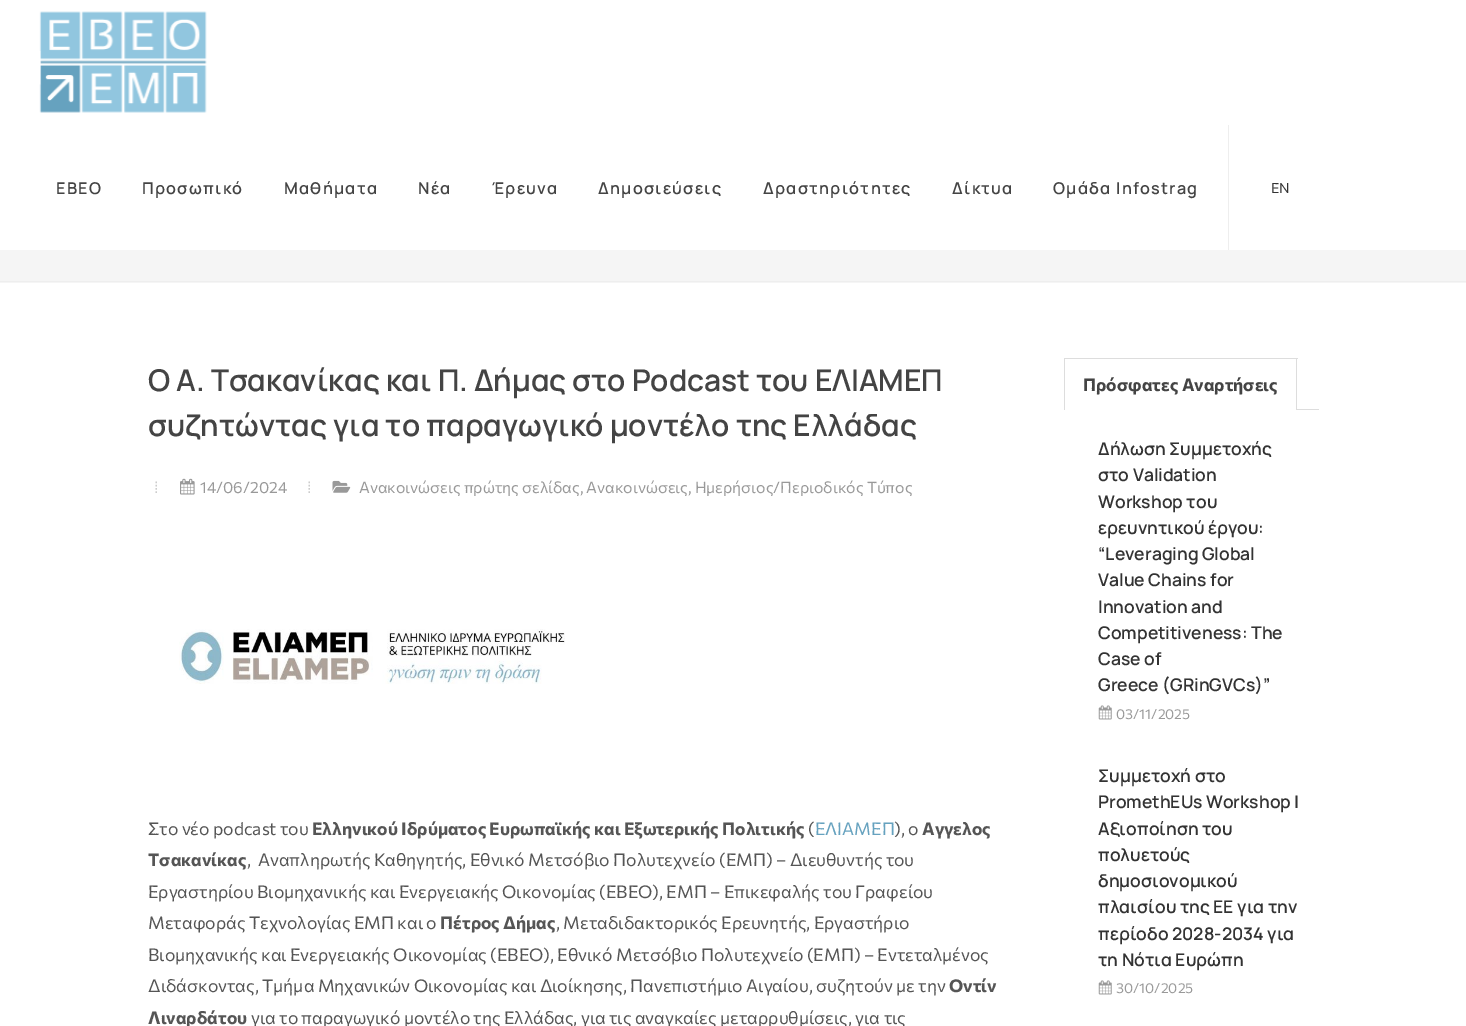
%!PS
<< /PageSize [1466 1026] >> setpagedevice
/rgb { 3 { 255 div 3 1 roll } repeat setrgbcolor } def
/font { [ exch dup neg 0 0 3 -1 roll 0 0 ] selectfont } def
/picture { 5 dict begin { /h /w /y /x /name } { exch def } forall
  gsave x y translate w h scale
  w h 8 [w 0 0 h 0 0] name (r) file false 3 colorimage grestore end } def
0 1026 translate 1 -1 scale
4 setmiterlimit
255 255 255 rgb
0 0 1466 1026 rectfill
(img/1.rgb) 39 11 168 102 picture
[
  [1228 125 1 125 238 238 238]
  [0 250 1466 33 245 245 245]
  [0 281 1466 1 238 238 238]
] { aload pop rgb rectfill } forall
(img/2.rgb) 180 478 15 17 picture
(img/3.rgb) 332 480 19 13 picture
(img/4.rgb) 179 629 386 55 picture
[
  [1064 409 255 1 221 221 221]
  [1064 358 234 1 221 221 221]
  [1296 358 1 51 221 221 221]
  [1064 358 1 51 221 221 221]
  [1065 409 231 1 255 255 255]
] { aload pop rgb rectfill } forall
(img/5.rgb) 1098 705 14 15 picture
(img/5.rgb) 1098 980 14 15 picture
/Manrope-SemiBold 16.25 font
68 68 68 rgb
56 194 moveto 1.25 0 (ΕΒΕΟ) ashow
142 194 moveto 1.25 0 (Προσωπικό) ashow
284 194 moveto 1.25 0 (Μαθήματα) ashow
418 194 moveto 1.25 0 (Νέα) ashow
492 194 moveto 1.25 0 (Έρευνα) ashow
598 194 moveto 1.25 0 (Δημοσιεύσεις) ashow
763 194 moveto 1.25 0 (Δραστηριότητες) ashow
952 194 moveto 1.25 0 (Δίκτυα) ashow
1053 194 moveto 1.25 0 (Ομάδα Infostrag) ashow
/Commissioner-Regular 14 font
51 51 51 rgb
1271 193 moveto (EN) show
/Manrope-SemiBold 30 font
68 68 68 rgb
148 391 moveto (Ο Α. Τσακανίκας και Π. Δήμας στο Podcast του ΕΛΙΑΜΕΠ) show
148 436 moveto (συζητώντας για το παραγωγικό μοντέλο της Ελλάδας) show
/LiberationSans-Regular 15.75 font
204 204 204 rgb
154 493 moveto (⁞) show
/Commissioner-Regular 15.75 font
153 153 153 rgb
200 493 moveto (14/06/2024) show
/LiberationSans-Regular 15.75 font
204 204 204 rgb
307 493 moveto (⁞) show
/Commissioner-Regular 15.75 font
153 153 153 rgb
359 493 moveto (Ανακοινώσεις πρώτης σελίδας, Ανακοινώσεις, Hμερήσιος/Περιοδικός Τύπος) show
/Commissioner-Regular 17.5 font
85 85 85 rgb
148 835 moveto (Στο νέο podcast του) show
/Commissioner-Bold 17.5 font
312 835 moveto (Ελληνικού Ιδρύματος Ευρωπαϊκής και Εξωτερικής Πολιτικής) show
/Commissioner-Regular 17.5 font
808 835 moveto (\() show
102 162 191 rgb
815 835 moveto (ΕΛΙΑΜΕΠ) show
85 85 85 rgb
894 835 moveto (\), o) show
/Commissioner-Bold 17.5 font
922 835 moveto (Αγγελος) show
148 866 moveto (Τσακανίκας) show
/Commissioner-Regular 17.5 font
[
  [(,  Αναπληρωτής Καθηγητής, Εθνικό Μετσόβιο Πολυτεχνείο \(ΕΜΠ\) – Διευθυντής του) 247 866]
  [(Εργαστηρίου Βιομηχανικής και Ενεργειακής Οικονομίας \(ΕΒΕΟ\), ΕΜΠ – Επικεφαλής του Γραφείου) 148 898]
  [(Μεταφοράς Τεχνολογίας ΕΜΠ και ο) 148 929]
] { aload pop moveto show } forall
/Commissioner-Bold 17.5 font
440 929 moveto (Πέτρος Δήμας) show
/Commissioner-Regular 17.5 font
[
  [(, Μεταδιδακτορικός Ερευνητής, Εργαστήριο) 556 929]
  [(Βιομηχανικής και Ενεργειακής Οικονομίας \(ΕΒΕΟ\), Εθνικό Μετσόβιο Πολυτεχνείο \(ΕΜΠ\) – Εντεταλμένος) 148 961]
  [(Διδάσκοντας, Τμήμα Μηχανικών Οικονομίας και Διοίκησης, Πανεπιστήμιο Αιγαίου, συζητούν με την) 148 992]
] { aload pop moveto show } forall
/Commissioner-Bold 17.5 font
949 992 moveto (Οντίν) show
148 1024 moveto (Λιναρδάτου) show
/Commissioner-Regular 17.5 font
251 1024 moveto (για το παραγωγικό μοντέλο της Ελλάδας, για τις αναγκαίες μεταρρυθμίσεις, για τις) show
/Commissioner-Bold 17.5 font
68 68 68 rgb
1083 391 moveto (Πρόσφατες Αναρτήσεις) show
/Manrope-SemiBold 17.5 font
51 51 51 rgb
[
  [(Δήλωση Συμμετοχής) 1098 455]
  [(στο Validation) 1098 481]
  [(Workshop του) 1098 508]
  [(ερευνητικού έργου:) 1098 534]
  [(“Leveraging Global) 1098 560]
  [(Value Chains for) 1098 586]
  [(Innovation and) 1098 613]
  [(Competitiveness: The) 1098 639]
  [(Case of) 1098 665]
  [(Greece \(GRinGVCs\)”) 1098 691]
] { aload pop moveto show } forall
/Commissioner-Regular 14 font
153 153 153 rgb
1116 719 moveto (03/11/2025) show
/Manrope-SemiBold 17.5 font
51 51 51 rgb
[
  [(Συμμετοχή στο) 1098 782]
  [(PromethEUs Workshop |) 1098 808]
  [(Αξιοποίηση του) 1098 835]
  [(πολυετούς) 1098 861]
  [(δημοσιονομικού) 1098 887]
  [(πλαισίου της ΕΕ για την) 1098 913]
  [(περίοδο 2028-2034 για) 1098 940]
  [(τη Νότια Ευρώπη) 1098 966]
] { aload pop moveto show } forall
/Commissioner-Regular 14 font
153 153 153 rgb
1116 993 moveto (30/10/2025) show
showpage
